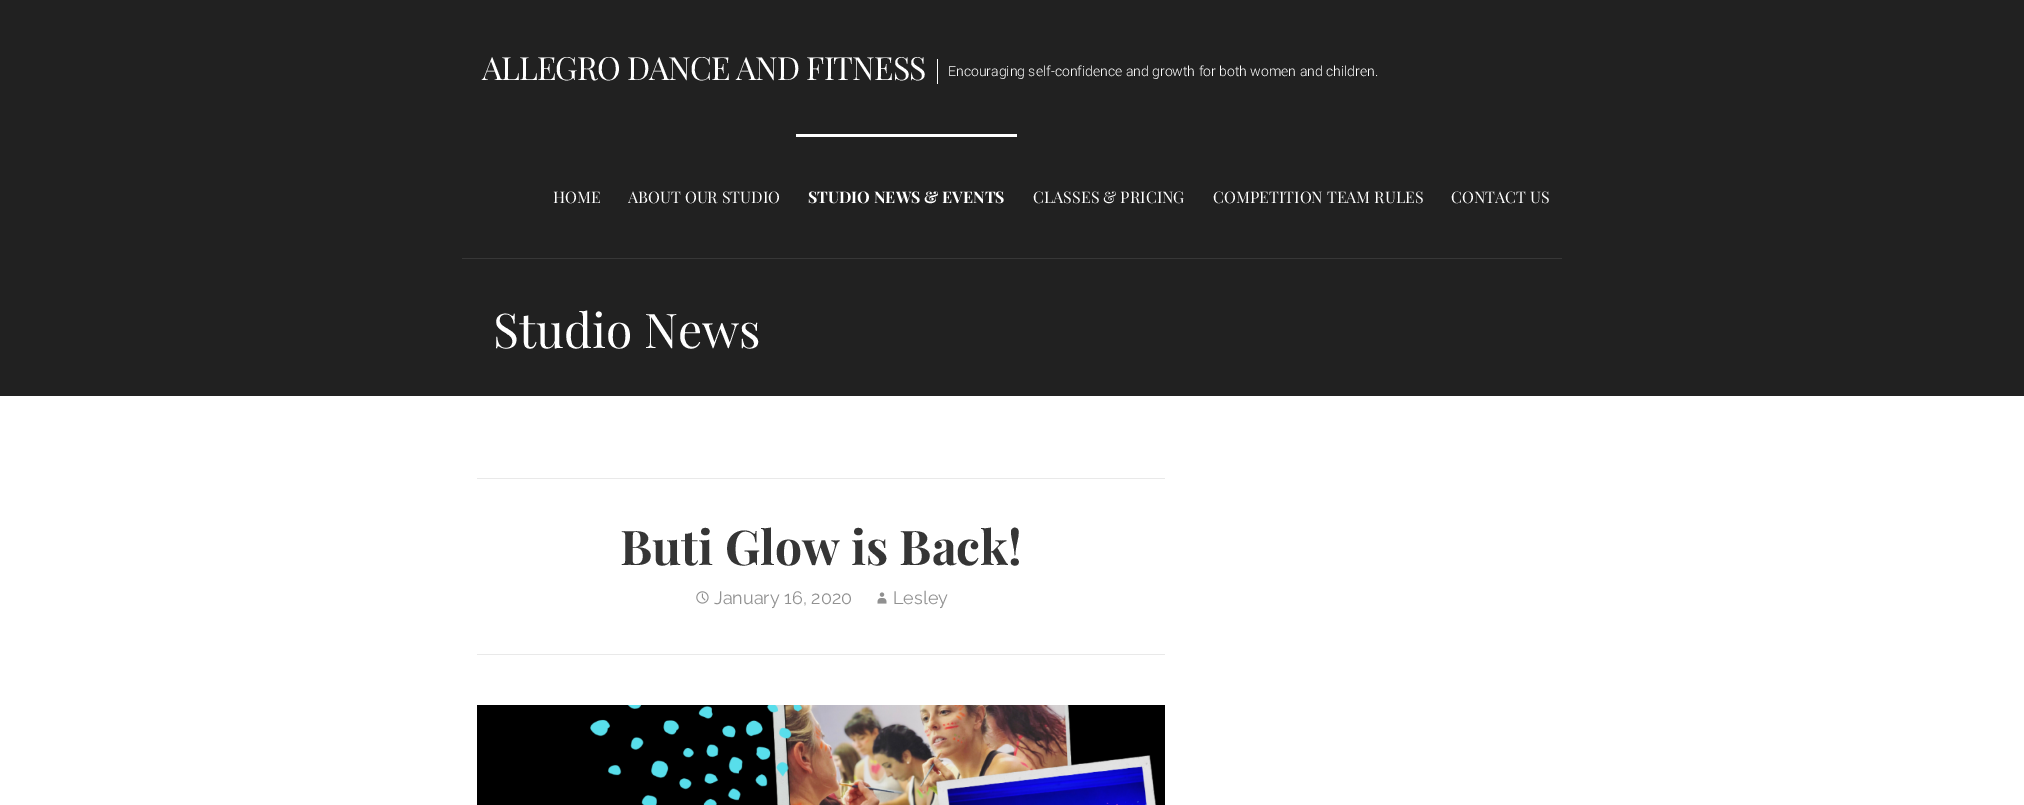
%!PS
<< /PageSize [2024 805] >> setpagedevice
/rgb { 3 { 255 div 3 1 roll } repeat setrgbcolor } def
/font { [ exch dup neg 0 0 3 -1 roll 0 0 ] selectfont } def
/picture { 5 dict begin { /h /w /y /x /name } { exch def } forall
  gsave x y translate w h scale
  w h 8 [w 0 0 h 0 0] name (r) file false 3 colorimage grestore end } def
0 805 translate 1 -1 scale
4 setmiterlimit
255 255 255 rgb
0 0 2024 805 rectfill
[
  [0 0 2024 396 33 33 33]
  [462 258 1100 1 55 55 55]
  [937 59 1 25 255 255 255]
  [796 134 221 3 255 255 255]
  [477 478 688 1 233 233 233]
  [477 654 688 1 233 233 233]
] { aload pop rgb rectfill } forall
(img/1.rgb) 696 591 13 13 picture
(img/2.rgb) 877 592 10 12 picture
(img/3.rgb) 477 705 688 100 picture
/PlayfairDisplay-Regular 32 font
255 255 255 rgb
482 80 moveto -0.95 0 (ALLEGRO DANCE AND FITNESS) ashow
/Roboto-Light 14 font
948 76 moveto (Encouraging self-confidence and growth for both women and children.) show
/PlayfairDisplay-Regular 16 font
553 203 moveto (HOME) show
628 203 moveto (ABOUT OUR STUDIO) show
/PlayfairDisplay-Bold 16 font
808 203 moveto (STUDIO NEWS & EVENTS) show
/PlayfairDisplay-Regular 16 font
[
  [(CLASSES & PRICING) 1033 203]
  [(COMPETITION TEAM RULES) 1213 203]
  [(CONTACT US) 1451 203]
] { aload pop moveto show } forall
/PlayfairDisplay-Regular 48 font
493 348 moveto (Studio News) show
/PlayfairDisplay-Bold 48 font
53 53 53 rgb
620 565 moveto (Buti Glow is Back!) show
/Raleway-Regular 18 font
145 145 145 rgb
714 604 moveto (January 16, 2020) show
893 604 moveto (Lesley) show
showpage
